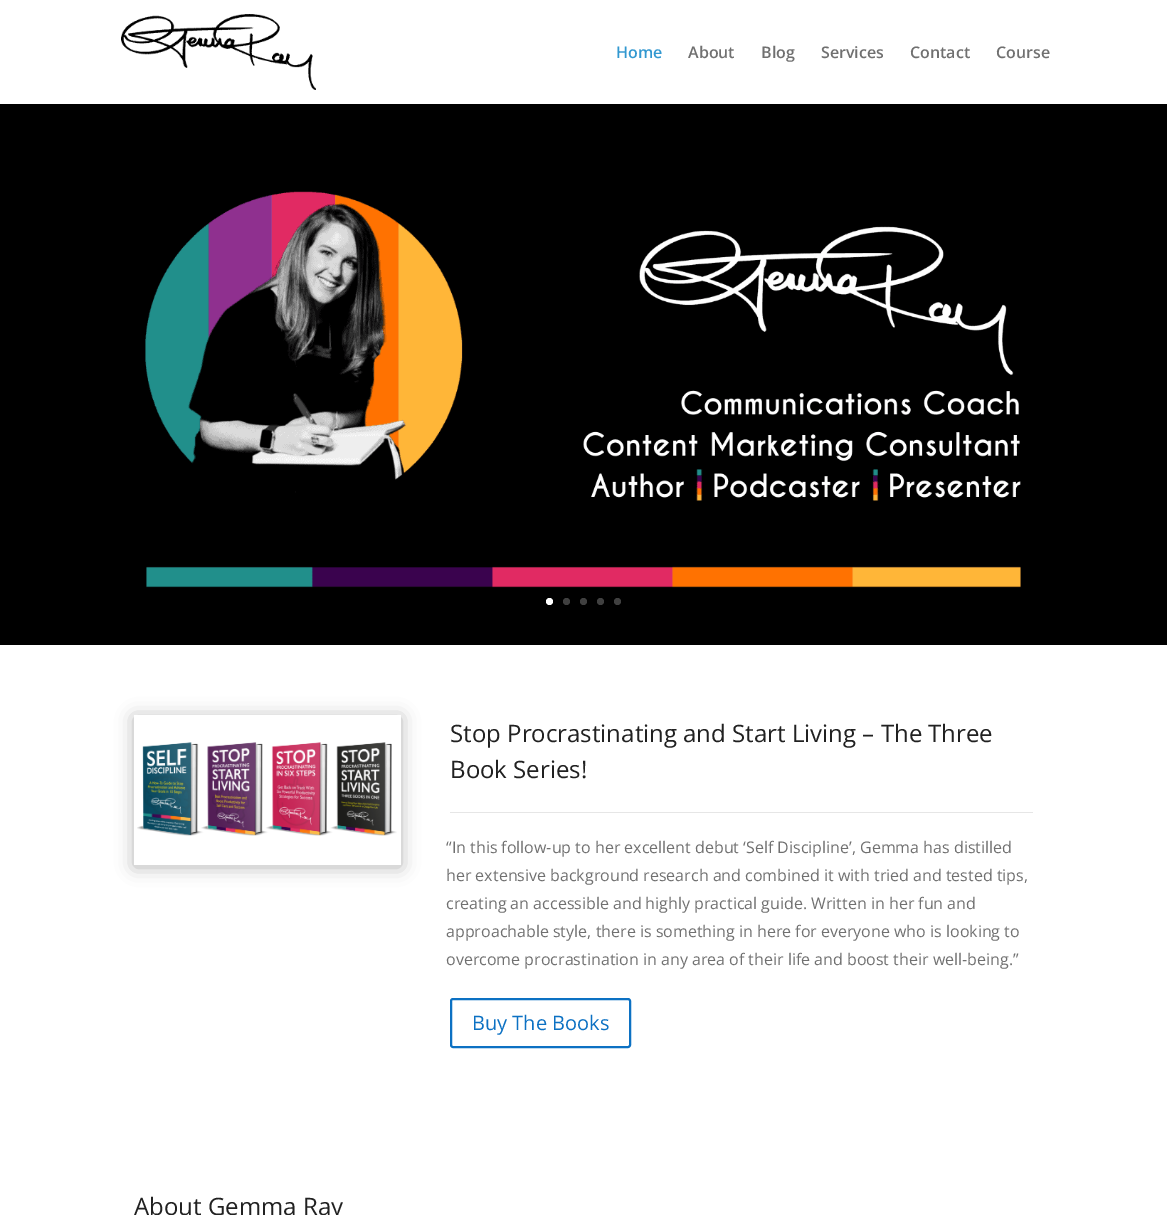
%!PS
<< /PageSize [1167 1215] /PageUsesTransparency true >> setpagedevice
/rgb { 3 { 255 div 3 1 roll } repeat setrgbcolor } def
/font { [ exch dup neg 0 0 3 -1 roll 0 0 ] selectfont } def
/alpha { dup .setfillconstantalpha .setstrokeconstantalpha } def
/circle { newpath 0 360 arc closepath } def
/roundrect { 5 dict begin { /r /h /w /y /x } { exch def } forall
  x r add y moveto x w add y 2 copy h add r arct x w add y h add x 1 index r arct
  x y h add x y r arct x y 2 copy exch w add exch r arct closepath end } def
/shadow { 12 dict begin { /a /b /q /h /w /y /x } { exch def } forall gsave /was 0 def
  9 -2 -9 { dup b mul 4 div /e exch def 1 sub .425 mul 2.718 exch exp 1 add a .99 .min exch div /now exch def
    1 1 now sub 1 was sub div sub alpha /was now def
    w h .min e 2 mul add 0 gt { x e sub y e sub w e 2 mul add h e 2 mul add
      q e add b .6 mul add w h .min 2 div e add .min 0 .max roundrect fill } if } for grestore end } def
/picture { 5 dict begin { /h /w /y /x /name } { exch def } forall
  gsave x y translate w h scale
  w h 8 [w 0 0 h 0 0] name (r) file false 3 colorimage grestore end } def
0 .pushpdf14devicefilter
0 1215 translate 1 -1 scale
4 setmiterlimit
255 255 255 rgb
0 0 1167 1215 rectfill
(img/1.rgb) 121 14 195 76 picture
(img/2.rgb) 0 104 1167 541 picture
549.5 601.5 3.5 circle fill
64 64 64 rgb
566.5 601.5 3.5 circle fill
583.5 601.5 3.5 circle fill
600.5 601.5 3.5 circle fill
617.5 601.5 3.5 circle fill
gsave
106 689 moveto 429 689 lineto 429 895 lineto 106 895 lineto closepath 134 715 moveto 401 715 lineto 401 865 lineto 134 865 lineto closepath eoclip newpath
0 0 0 rgb
134 717 267 150 0 9 0.3 shadow
grestore
(img/3.rgb) 137 742 260 94 picture
230 230 230 rgb
450 812 583 1 rectfill
12 113 195 rgb
2 setlinewidth
451 999 179 48 2 roundrect stroke
/OpenSans-SemiBold 16 font
50 152 208 rgb
616 58 moveto (Home) show
112 112 112 rgb
[
  [(About) 688 58]
  [(Blog) 761 58]
  [(Services) 821 58]
  [(Contact) 910 58]
  [(Course) 996 58]
] { aload pop moveto show } forall
/OpenSans-Regular 24 font
33 33 33 rgb
450 742 moveto (Stop Procrastinating and Start Living – The Three) show
450 778 moveto (Book Series!) show
/OpenSans-Regular 16 font
112 112 112 rgb
[
  [(“In this follow-up to her excellent debut ‘Self Discipline’, Gemma has distilled) 446 853]
  [(her extensive background research and combined it with tried and tested tips,) 446 881]
  [(creating an accessible and highly practical guide. Written in her fun and) 446 909]
  [(approachable style, there is something in here for everyone who is looking to) 446 937]
  [(overcome procrastination in any area of their life and boost their well-being.”) 446 965]
] { aload pop moveto show } forall
/OpenSans-Regular 20 font
12 113 195 rgb
472 1030 moveto (Buy The Books) show
/OpenSans-Regular 24 font
33 33 33 rgb
134 1215 moveto (About Gemma Ray) show
.poppdf14devicefilter showpage
